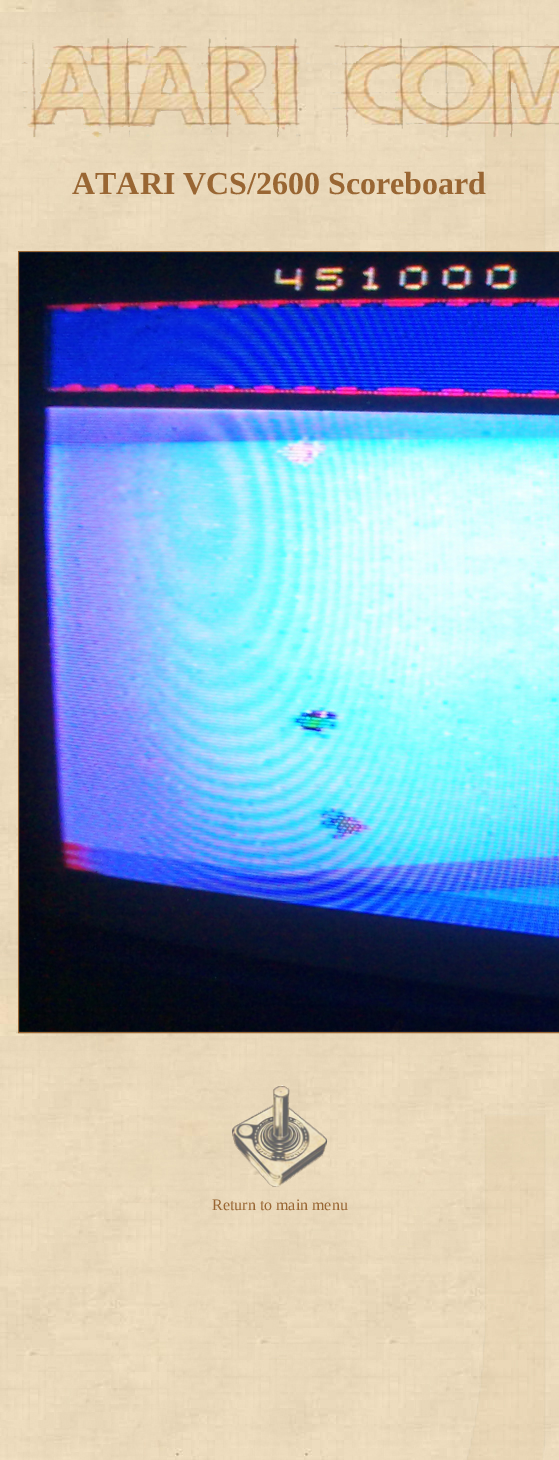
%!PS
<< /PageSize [559 1460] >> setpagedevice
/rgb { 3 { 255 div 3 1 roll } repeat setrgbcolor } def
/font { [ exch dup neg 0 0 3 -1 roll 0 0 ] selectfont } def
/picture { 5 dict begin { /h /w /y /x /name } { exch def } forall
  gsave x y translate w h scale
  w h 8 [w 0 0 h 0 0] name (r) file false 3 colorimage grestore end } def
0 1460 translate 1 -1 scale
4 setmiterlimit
255 255 255 rgb
0 0 559 1460 rectfill
(img/1.rgb) 0 0 559 1460 picture
(img/2.rgb) 21 24 538 114 picture
153 102 51 rgb
18.5 251.5 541 781 rectstroke
(img/3.rgb) 19 252 540 780 picture
(img/4.rgb) 231 1085 97 103 picture
/LiberationSerif-Bold 32 font
72 194 moveto (ATARI VCS/2600 Scoreboard) show
/LiberationSerif-Regular 16 font
212 1210 moveto (Return to main menu) show
showpage
